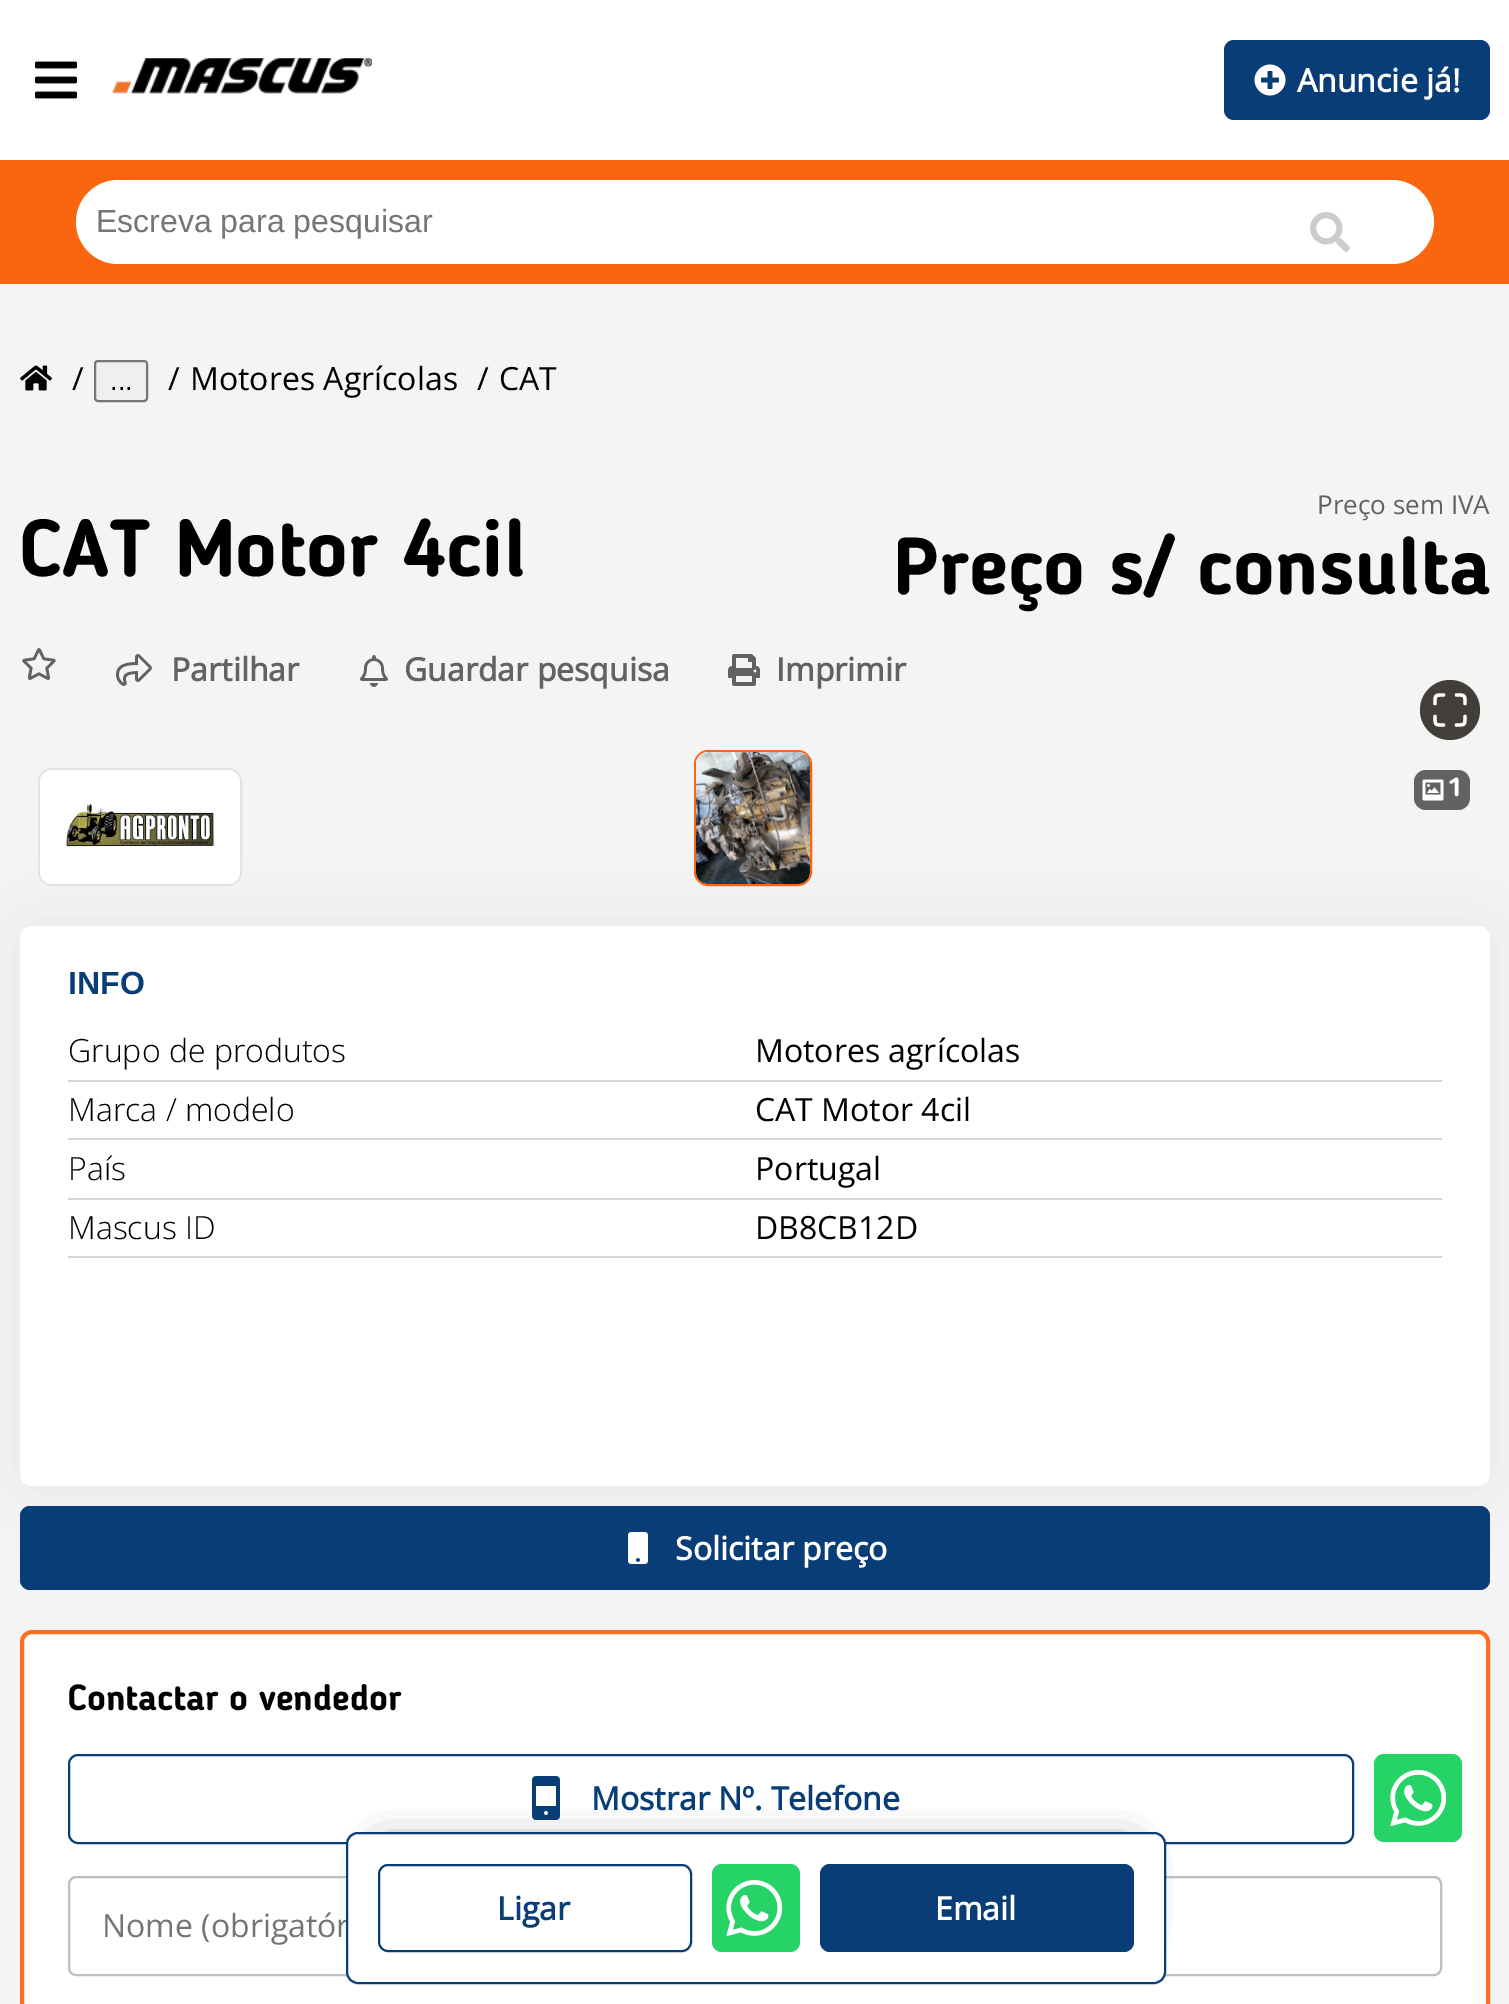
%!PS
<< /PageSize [1509 2004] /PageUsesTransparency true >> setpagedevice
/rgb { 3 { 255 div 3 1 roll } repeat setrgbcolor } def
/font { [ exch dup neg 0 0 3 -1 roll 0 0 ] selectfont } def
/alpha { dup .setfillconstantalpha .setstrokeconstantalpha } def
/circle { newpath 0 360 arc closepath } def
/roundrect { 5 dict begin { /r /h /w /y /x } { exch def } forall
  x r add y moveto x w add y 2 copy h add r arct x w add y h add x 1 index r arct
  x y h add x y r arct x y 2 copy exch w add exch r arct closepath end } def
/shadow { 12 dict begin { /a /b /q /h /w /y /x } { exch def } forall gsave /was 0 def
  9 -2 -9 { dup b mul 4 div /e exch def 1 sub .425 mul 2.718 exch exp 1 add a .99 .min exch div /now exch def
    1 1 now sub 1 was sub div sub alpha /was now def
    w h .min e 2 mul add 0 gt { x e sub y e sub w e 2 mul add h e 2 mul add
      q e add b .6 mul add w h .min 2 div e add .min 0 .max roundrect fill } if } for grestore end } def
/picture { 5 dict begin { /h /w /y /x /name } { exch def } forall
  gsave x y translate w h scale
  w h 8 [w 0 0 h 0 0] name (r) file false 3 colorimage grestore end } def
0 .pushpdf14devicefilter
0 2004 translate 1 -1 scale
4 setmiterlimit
244 244 244 rgb
0 0 1509 2004 rectfill
255 255 255 rgb
0 0 1509 160 rectfill
(img/1.rgb) 35 61 42 38 picture
(img/2.rgb) 112 58 260 36 picture
8 61 119 rgb
1224 40 266 80 10 roundrect fill
(img/3.rgb) 1254 64 32 32 picture
250 101 15 rgb
0 160 1509 124 rectfill
255 255 255 rgb
118 180 moveto 1230 180 lineto 1230 264 lineto 118 264 lineto 95 264 76 245 76 222 curveto 76 199 95 180 118 180 curveto closepath fill
1230 180 moveto 1392 180 lineto 1415 180 1434 199 1434 222 curveto 1434 245 1415 264 1392 264 curveto 1230 264 lineto closepath fill
(img/4.rgb) 1310 212 40 40 picture
(img/5.rgb) 20 365 32 26 picture
239 239 239 rgb
95 361 52 40 3 roundrect gsave fill grestore
118 118 118 rgb
2 setlinewidth
stroke
(img/6.rgb) 22 648 34 32 picture
(img/7.rgb) 116 654 36 32 picture
(img/8.rgb) 360 655 28 32 picture
(img/9.rgb) 728 654 32 32 picture
0 0 0 rgb
20 926 1470 560 12 41 0.06 shadow
250 101 15 rgb
695 751 116 134 13 roundrect stroke
(img/10.rgb) 696 752 114 132 picture
66 63 59 rgb
1450 710 30 circle fill
255 255 255 rgb
3.3 setlinewidth
1 setlinecap
1 setlinejoin
1443.5 695 moveto 1435 695 1435 695 1435 703.5 curveto 1465 703.5 moveto 1465 695 1465 695 1456.5 695 curveto 1456.5 725 moveto 1465 725 1465 725 1465 716.5 curveto 1435 716.5 moveto 1435 725 1435 725 1443.5 725 curveto stroke
227 227 227 rgb
2 setlinewidth
0 setlinecap
0 setlinejoin
39 769 202 116 13 roundrect stroke
255 255 255 rgb
40 770 200 114 12 roundrect fill
(img/11.rgb) 66 803 148 44 picture
98 98 98 rgb
1414 770 56 40 12 roundrect fill
(img/12.rgb) 1422 779 22 22 picture
255 255 255 rgb
20 926 1470 560 12 roundrect fill
[
  [68 1080 1374 2 214 214 214]
  [68 1138 1374 2 214 214 214]
  [68 1198 1374 2 214 214 214]
  [68 1256 1374 2 214 214 214]
] { aload pop rgb rectfill } forall
8 61 119 rgb
20 1506 1470 84 10 roundrect fill
(img/13.rgb) 628 1532 20 32 picture
255 255 255 rgb
22 1632 1466 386 10 roundrect gsave fill grestore
251 113 33 rgb
4 setlinewidth
stroke
8 61 119 rgb
2 setlinewidth
69 1755 1284 88 9 roundrect stroke
(img/14.rgb) 532 1776 28 44 picture
37 211 102 rgb
1374 1754 88 88 10 roundrect fill
(img/15.rgb) 1390 1770 56 56 picture
190 190 190 rgb
69 1877 1372 98 7 roundrect stroke
51 51 51 rgb
384 1854 744 76 0 20 1 shadow
/OpenSans-Bold 32 font
255 255 255 rgb
1297 92 moveto (Anuncie já!) show
/LiberationSans-Regular 32 font
117 117 117 rgb
96 232 moveto (Escreva para pesquisar) show
/OpenSans-Regular 32 font
0 0 0 rgb
72 390 moveto (/) show
/LiberationSans-Regular 27 font
110 390 moveto (...) show
/OpenSans-Regular 32 font
[
  [(/) 168 390]
  [(Motores Agrícolas) 190 390]
  [(/) 477 390]
  [(CAT) 499 390]
] { aload pop moveto show } forall
/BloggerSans-Bold 80 font
20 576 moveto (CAT Motor 4cil) show
/OpenSans-Regular 26 font
98 98 98 rgb
1317 514 moveto (Preço sem IVA) show
/BloggerSans-Bold 80 font
0 0 0 rgb
893 594 moveto (Preço s/ consulta) show
/OpenSans-Bold 32 font
98 98 98 rgb
[
  [(Partilhar) 171 681]
  [(Guardar pesquisa) 404 681]
  [(Imprimir) 776 681]
] { aload pop moveto show } forall
/BloggerSans-Bold 26 font
255 255 255 rgb
1448 796 moveto (1) show
/LiberationSans-Bold 32 font
8 61 119 rgb
68 994 moveto (INFO) show
/OpenSans-Light 32 font
0 0 0 rgb
68 1062 moveto (Grupo de produtos) show
/OpenSans-Regular 32 font
755 1062 moveto (Motores agrícolas) show
/OpenSans-Light 32 font
68 1121 moveto (Marca / modelo) show
/OpenSans-Regular 32 font
755 1121 moveto (CAT Motor 4cil) show
/OpenSans-Light 32 font
68 1180 moveto (País) show
/OpenSans-Regular 32 font
755 1180 moveto (Portugal) show
/OpenSans-Light 32 font
68 1239 moveto (Mascus ID) show
/OpenSans-Regular 32 font
755 1239 moveto (DB8CB12D) show
/OpenSans-Bold 32 font
255 255 255 rgb
675 1560 moveto (Solicitar preço) show
/BloggerSans-Bold 36 font
0 0 0 rgb
68 1710 moveto (Contactar o vendedor) show
/OpenSans-Bold 32 font
8 61 119 rgb
591 1810 moveto (Mostrar Nº. Telefone) show
/OpenSans-Regular 32 font
117 117 117 rgb
102 1937 moveto (Nome \(obrigatór) show
255 255 255 rgb
347 1833 818 150 11 roundrect gsave fill grestore
8 61 119 rgb
stroke
379 1865 312 86 9 roundrect stroke
/OpenSans-Bold 32 font
497 1920 moveto (Ligar) show
37 211 102 rgb
712 1864 88 88 10 roundrect fill
(img/16.rgb) 726 1880 57 56 picture
8 61 119 rgb
820 1864 314 88 10 roundrect fill
255 255 255 rgb
935 1920 moveto (Email) show
.poppdf14devicefilter showpage
